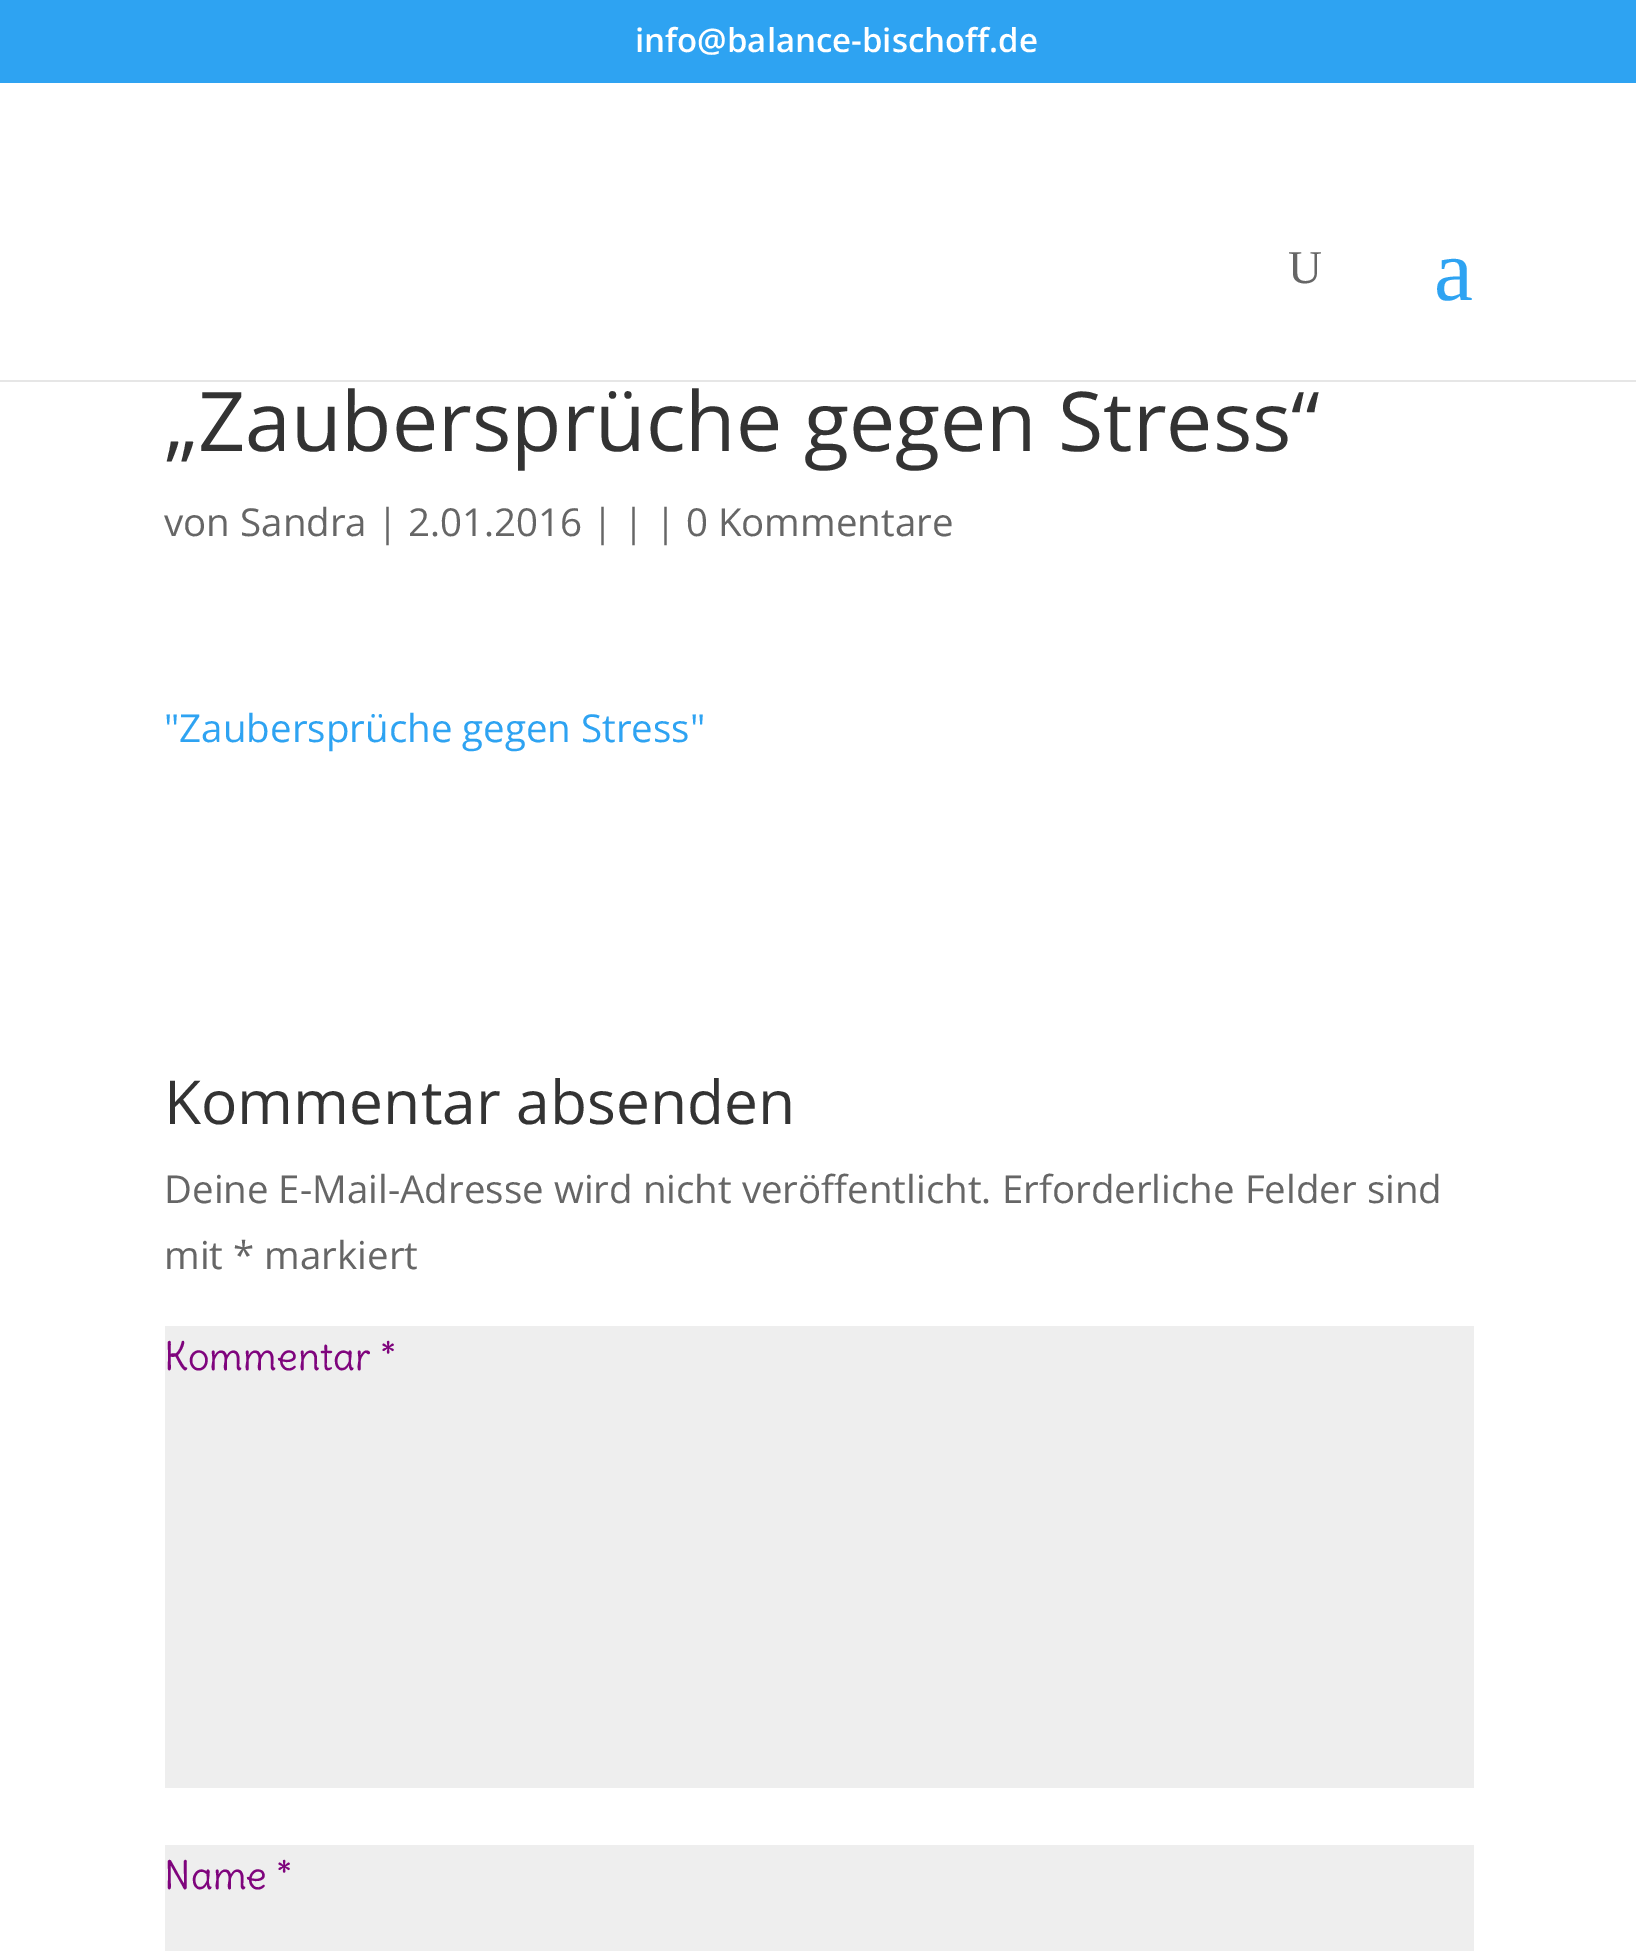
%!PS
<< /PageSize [1636 1951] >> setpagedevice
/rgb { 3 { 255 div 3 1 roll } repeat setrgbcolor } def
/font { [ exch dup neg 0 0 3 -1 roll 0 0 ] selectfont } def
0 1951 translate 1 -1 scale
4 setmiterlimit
255 255 255 rgb
0 0 1636 1951 rectfill
[
  [0 0 1636 83 46 163 242]
  [0 380 1636 2 230 230 230]
  [165 1326 1309 462 238 238 238]
  [165 1845 1309 106 238 238 238]
] { aload pop rgb rectfill } forall
/OpenSans-SemiBold 33 font
255 255 255 rgb
635 52 moveto (info@balance-bischoff.de) show
/LiberationSerif-Regular 47 font
102 102 102 rgb
1288 283 moveto (U) show
/LiberationSerif-Regular 88 font
46 163 242 rgb
1434 300 moveto (a) show
/OpenSans-Regular 82.5 font
51 51 51 rgb
164 451 moveto („Zaubersprüche gegen Stress“) show
/OpenSans-Regular 38.5 font
102 102 102 rgb
164 536 moveto (von Sandra | 2.01.2016 | | | 0 Kommentare) show
46 163 242 rgb
164 742 moveto ("Zaubersprüche gegen Stress") show
/OpenSans-Regular 60.5 font
51 51 51 rgb
164 1124 moveto (Kommentar absenden) show
/OpenSans-Regular 38.5 font
102 102 102 rgb
164 1203 moveto (Deine E-Mail-Adresse wird nicht veröffentlicht. Erforderliche Felder sind) show
164 1269 moveto (mit * markiert) show
/Delius-Regular 38.5 font
127 4 125 rgb
164 1370 moveto (Kommentar *) show
164 1889 moveto (Name *) show
showpage
